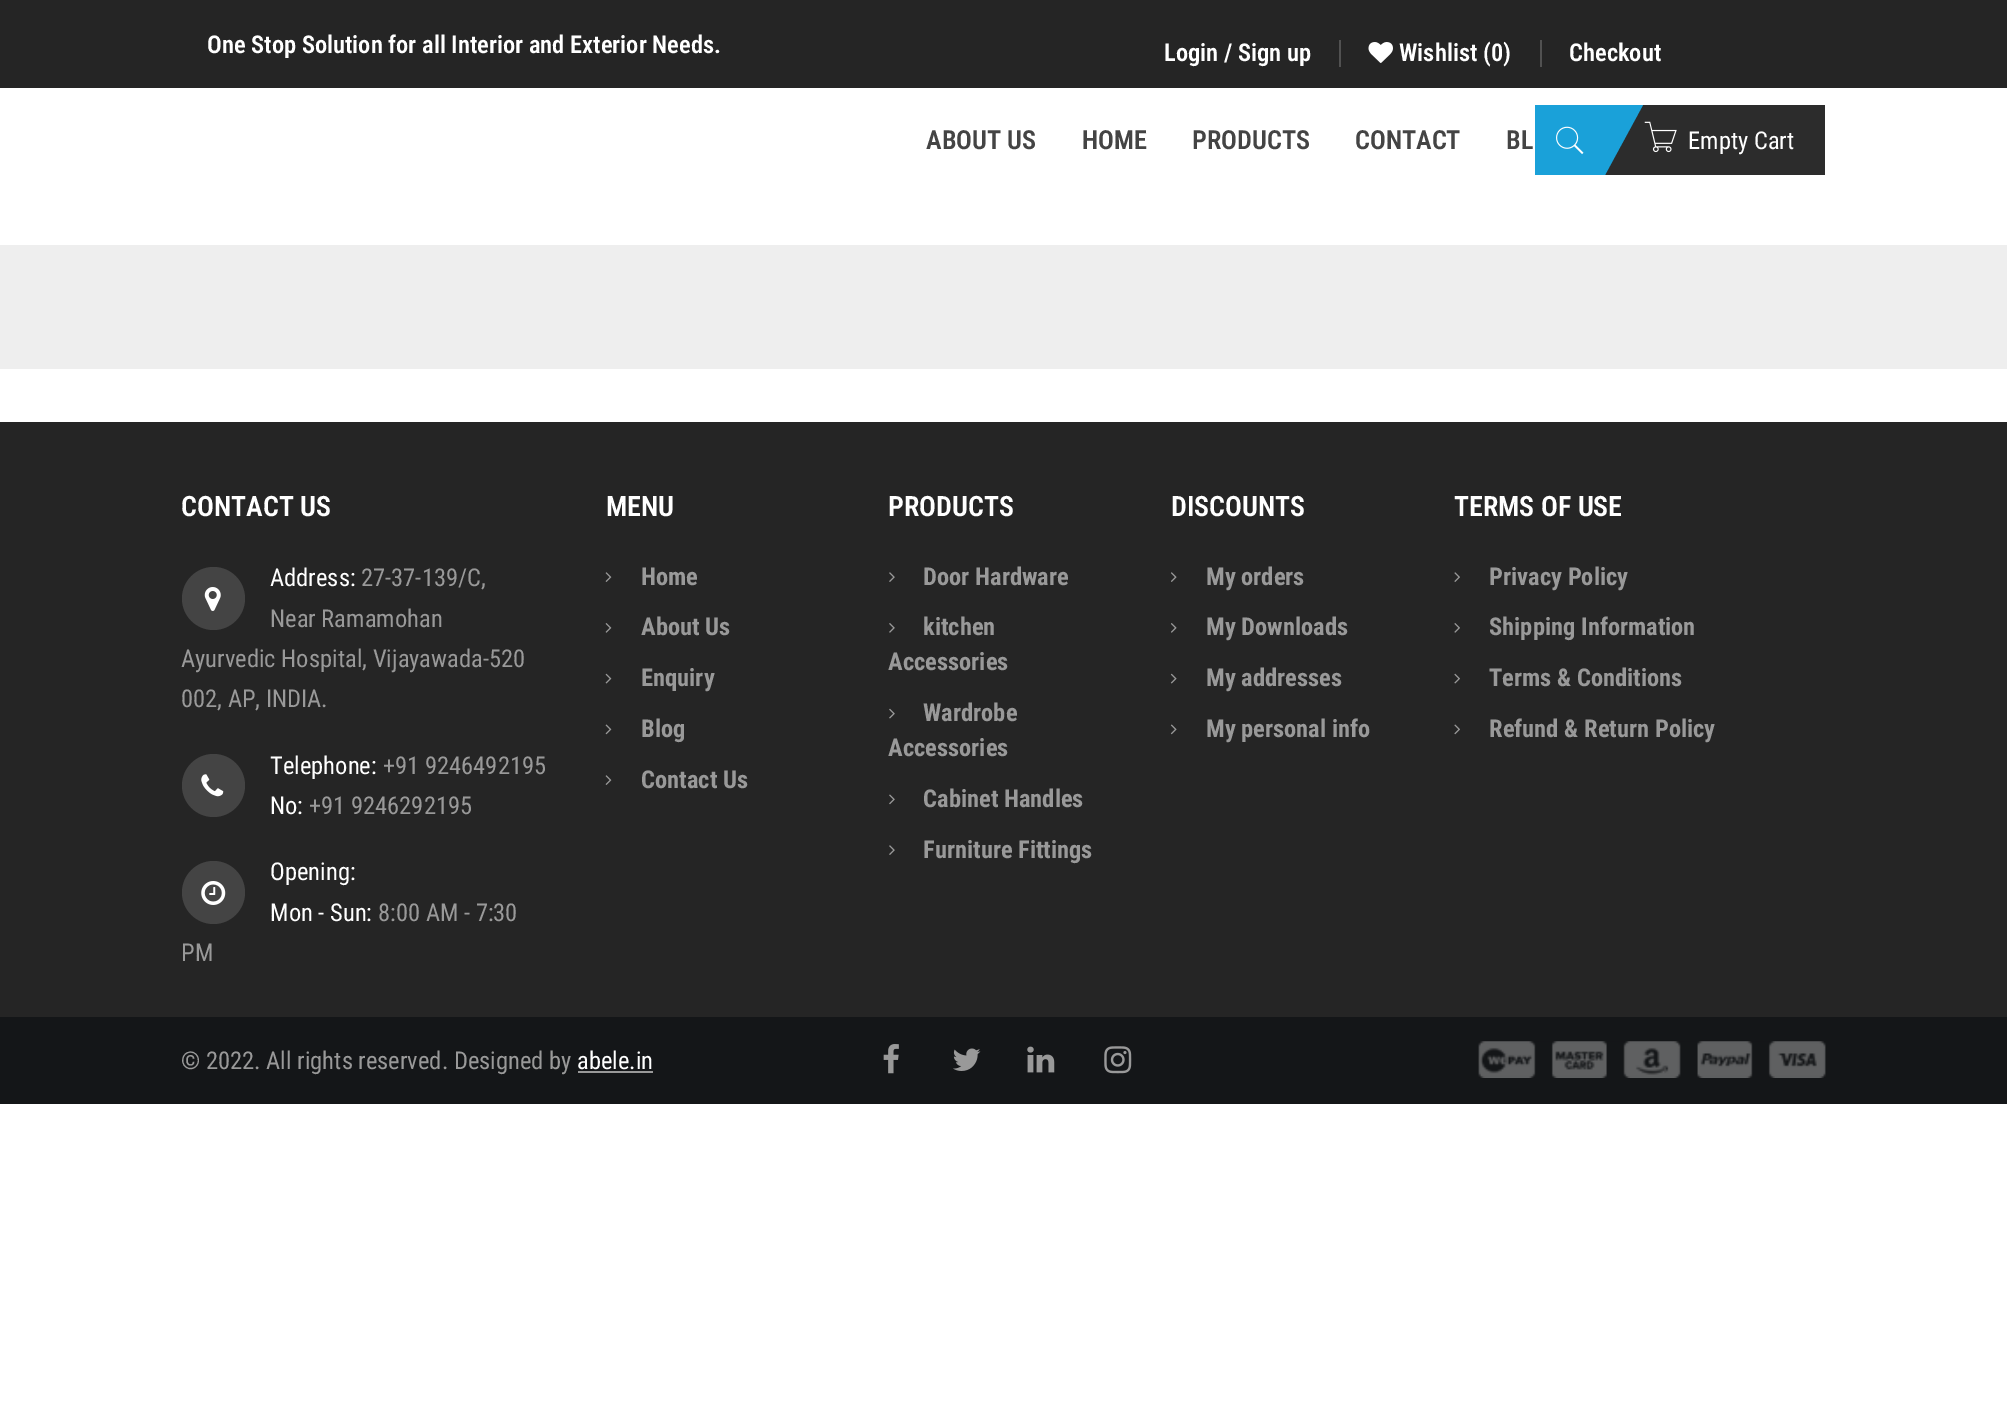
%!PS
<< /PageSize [2007 1404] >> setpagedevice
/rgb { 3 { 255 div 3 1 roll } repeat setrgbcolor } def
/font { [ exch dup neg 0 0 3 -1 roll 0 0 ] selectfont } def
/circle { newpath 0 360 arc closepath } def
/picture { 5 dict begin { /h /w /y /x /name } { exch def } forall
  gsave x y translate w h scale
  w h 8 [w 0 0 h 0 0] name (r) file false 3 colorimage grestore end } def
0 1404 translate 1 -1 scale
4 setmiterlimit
255 255 255 rgb
0 0 2007 1404 rectfill
37 37 37 rgb
0 0 2007 88 rectfill
81 81 81 rgb
1339 40 2 27 rectfill
(img/1.rgb) 1368 42 25 21 picture
1540 40 2 27 rectfill
26 161 217 rgb
1535 105 70 70 rectfill
(img/2.rgb) 1556 126 28 29 picture
44 44 44 rgb
1605 105 220 70 rectfill
26 161 217 rgb
1605 105 moveto 1643 105 lineto 1605 175 lineto closepath fill
(img/3.rgb) 1644 121 33 32 picture
238 238 238 rgb
0 245 2007 124 rectfill
37 37 37 rgb
0 422 2007 595 rectfill
68 68 68 rgb
213.5 598.5 31.5 circle fill
(img/4.rgb) 204 587 17 24 picture
213.5 785.5 31.5 circle fill
(img/5.rgb) 201 774 23 23 picture
213.5 892.5 31.5 circle fill
(img/6.rgb) 201 881 25 24 picture
(img/7.rgb) 605 572 7 10 picture
(img/8.rgb) 605 623 7 10 picture
(img/9.rgb) 605 673 7 11 picture
(img/10.rgb) 605 724 7 11 picture
(img/7.rgb) 605 775 7 10 picture
(img/11.rgb) 889 572 6 10 picture
(img/12.rgb) 889 623 6 10 picture
(img/13.rgb) 889 708 6 11 picture
(img/14.rgb) 889 794 6 11 picture
(img/11.rgb) 889 845 6 10 picture
(img/15.rgb) 1171 572 6 10 picture
(img/16.rgb) 1171 623 6 10 picture
(img/17.rgb) 1170 673 7 11 picture
(img/18.rgb) 1170 724 7 11 picture
(img/19.rgb) 1454 572 6 10 picture
(img/20.rgb) 1454 623 6 10 picture
(img/21.rgb) 1454 673 6 11 picture
(img/22.rgb) 1454 724 6 11 picture
20 22 24 rgb
0 1017 2007 87 rectfill
153 153 153 rgb
578 1071 75 2 rectfill
(img/23.rgb) 883 1044 16 30 picture
(img/24.rgb) 953 1048 28 23 picture
(img/25.rgb) 1027 1046 28 27 picture
(img/26.rgb) 1104 1046 28 28 picture
(img/27.rgb) 1478 1041 348 37 picture
/RobotoCondensed-SemiBold 24.5 font
255 255 255 rgb
[
  [(One Stop Solution for all Interior and Exterior Needs.) 207 53]
  [(Login) 1164 61]
  [(/ Sign up) 1224 61]
  [(Wishlist \(0\)) 1399 61]
  [(Checkout) 1569 61]
] { aload pop moveto show } forall
/RobotoCondensed-SemiBold 26.25 font
68 68 68 rgb
[
  [(ABOUT US) 926 149]
  [(HOME) 1082 149]
  [(PRODUCTS) 1192 149]
  [(CONTACT) 1355 149]
  [(BL) 1506 149]
] { aload pop moveto show } forall
/RobotoCondensed-Regular 24.5 font
255 255 255 rgb
1688 149 moveto (Empty Cart) show
/RobotoCondensed-SemiBold 28 font
181 516 moveto (CONTACT US) show
/RobotoCondensed-Regular 24.5 font
270 586 moveto (Address:) show
153 153 153 rgb
[
  [(27-37-139/C,) 361 586]
  [(Near Ramamohan) 270 627]
  [(Ayurvedic Hospital, Vijayawada-520) 181 667]
  [(002, AP, INDIA.) 181 707]
] { aload pop moveto show } forall
255 255 255 rgb
270 774 moveto (Telephone:) show
153 153 153 rgb
383 774 moveto (+91 9246492195) show
255 255 255 rgb
270 814 moveto (No:) show
153 153 153 rgb
309 814 moveto (+91 9246292195) show
255 255 255 rgb
270 880 moveto (Opening:) show
270 921 moveto (Mon - Sun:) show
153 153 153 rgb
378 921 moveto (8:00 AM - 7:30) show
181 961 moveto (PM) show
/RobotoCondensed-SemiBold 28 font
255 255 255 rgb
606 516 moveto (MENU) show
/RobotoCondensed-Bold 24.5 font
153 153 153 rgb
[
  [(Home) 641 585]
  [(About Us) 641 635]
  [(Enquiry) 641 686]
  [(Blog) 641 737]
  [(Contact Us) 641 788]
] { aload pop moveto show } forall
/RobotoCondensed-SemiBold 28 font
255 255 255 rgb
888 516 moveto (PRODUCTS) show
/RobotoCondensed-Bold 24.5 font
153 153 153 rgb
[
  [(Door Hardware) 923 585]
  [(kitchen) 923 635]
  [(Accessories) 888 670]
  [(Wardrobe) 923 721]
  [(Accessories) 888 756]
  [(Cabinet Handles) 923 807]
  [(Furniture Fittings) 923 858]
] { aload pop moveto show } forall
/RobotoCondensed-SemiBold 28 font
255 255 255 rgb
1171 516 moveto (DISCOUNTS) show
/RobotoCondensed-Bold 24.5 font
153 153 153 rgb
[
  [(My orders) 1206 585]
  [(My Downloads) 1206 635]
  [(My addresses) 1206 686]
  [(My personal info) 1206 737]
] { aload pop moveto show } forall
/RobotoCondensed-SemiBold 28 font
255 255 255 rgb
1454 516 moveto (TERMS OF USE) show
/RobotoCondensed-Bold 24.5 font
153 153 153 rgb
[
  [(Privacy Policy) 1489 585]
  [(Shipping Information) 1489 635]
  [(Terms & Conditions) 1489 686]
  [(Refund & Return Policy) 1489 737]
] { aload pop moveto show } forall
/RobotoCondensed-Regular 24.5 font
181 1069 moveto (© 2022. All rights reserved. Designed by) show
255 255 255 rgb
577 1069 moveto (abele.in) show
showpage
